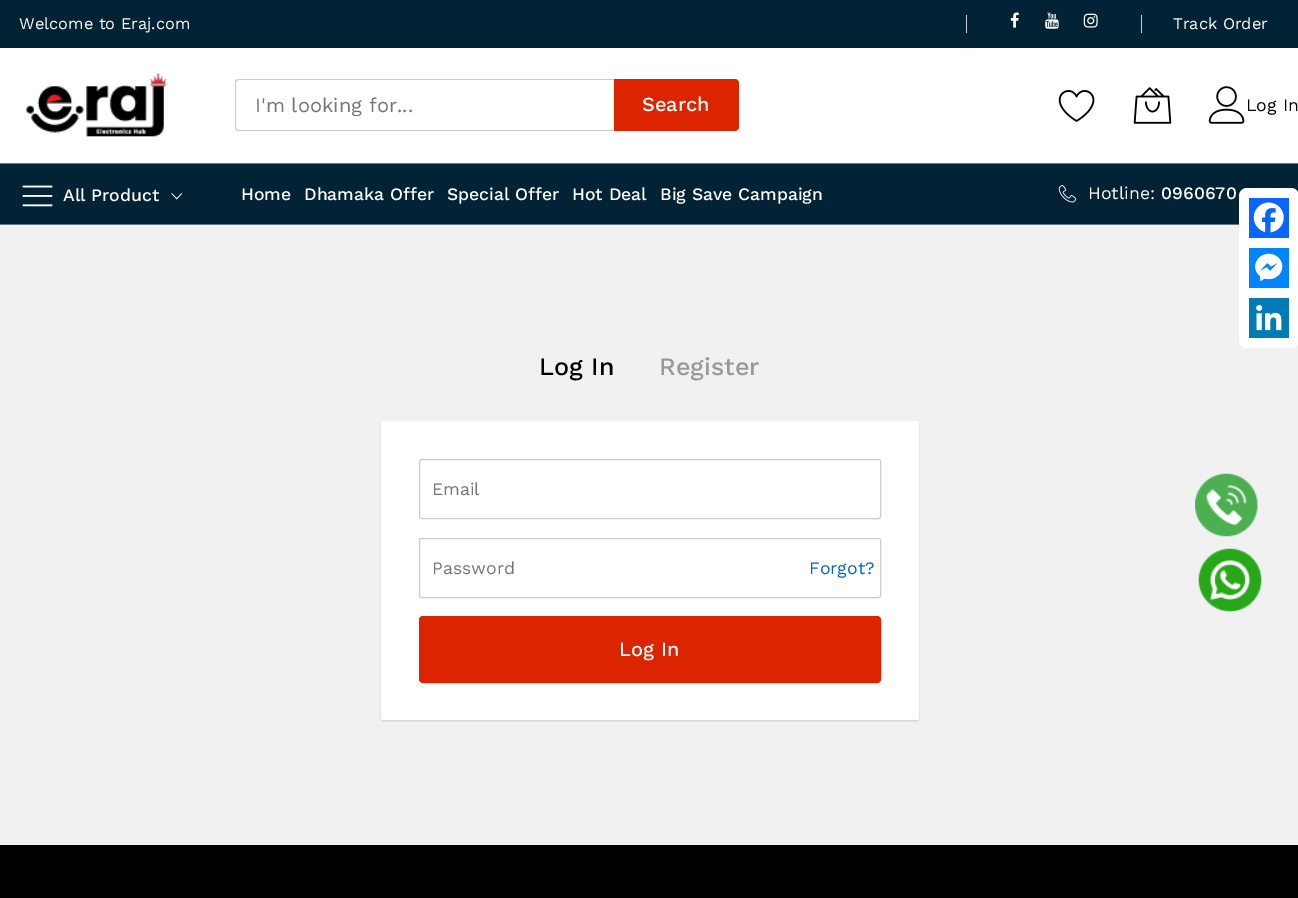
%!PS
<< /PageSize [1298 898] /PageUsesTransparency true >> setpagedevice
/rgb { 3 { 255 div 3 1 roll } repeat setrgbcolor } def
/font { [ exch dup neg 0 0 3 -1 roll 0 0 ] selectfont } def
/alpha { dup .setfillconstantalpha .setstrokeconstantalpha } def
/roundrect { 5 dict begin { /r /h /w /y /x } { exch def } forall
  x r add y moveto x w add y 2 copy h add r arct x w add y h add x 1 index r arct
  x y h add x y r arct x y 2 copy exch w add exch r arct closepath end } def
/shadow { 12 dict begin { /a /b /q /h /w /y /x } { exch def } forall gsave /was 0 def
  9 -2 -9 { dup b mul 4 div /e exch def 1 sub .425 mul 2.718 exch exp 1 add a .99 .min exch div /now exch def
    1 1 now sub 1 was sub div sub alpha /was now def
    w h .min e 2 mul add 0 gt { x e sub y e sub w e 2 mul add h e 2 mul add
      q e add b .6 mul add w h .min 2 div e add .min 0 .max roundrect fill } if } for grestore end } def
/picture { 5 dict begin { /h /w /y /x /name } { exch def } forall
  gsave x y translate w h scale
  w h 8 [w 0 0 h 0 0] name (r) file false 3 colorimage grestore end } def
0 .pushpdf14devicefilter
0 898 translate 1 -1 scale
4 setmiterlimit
255 255 255 rgb
0 0 1298 898 rectfill
2 35 53 rgb
0 0 1298 48 rectfill
204 204 204 rgb
966 15 1 18 rectfill
(img/1.rgb) 1010 12 9 16 picture
(img/2.rgb) 1045 12 14 17 picture
(img/3.rgb) 1083 13 15 15 picture
1141 15 1 18 rectfill
239 79 moveto 614 79 lineto 614 131 lineto 239 131 lineto 237 131 235 130 235 128 curveto 235 82 lineto 235 80 237 79 239 79 curveto closepath 239 80 moveto 614 80 lineto 614 130 lineto 239 130 lineto 237 130 236 129 236 128 curveto 236 82 lineto 236 81 237 80 239 80 curveto closepath eofill
221 36 0 rgb
614 79 moveto 735 79 lineto 737 79 739 81 739 83 curveto 739 127 lineto 739 129 737 131 735 131 curveto 614 131 lineto closepath fill
(img/4.rgb) 1058 90 37 32 picture
(img/5.rgb) 1133 87 39 37 picture
(img/6.rgb) 1208 86 37 38 picture
(img/7.rgb) 26 73 141 64 picture
2 35 53 rgb
0 164 1298 60 rectfill
(img/8.rgb) 22 185 31 22 picture
(img/9.rgb) 171 193 12 7 picture
103 120 129 rgb
0 163 1298 1 rectfill
0 224 1239 1 rectfill
(img/10.rgb) 1058 185 19 18 picture
241 241 241 rgb
0 225 1298 620 rectfill
255 255 255 rgb
1239 188 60 160 8 roundrect fill
8 102 255 rgb
1249 198 40 40 rectfill
(img/11.rgb) 1253 202 31 31 picture
0 132 255 rgb
1249 248 40 40 rectfill
(img/12.rgb) 1255 253 28 29 picture
0 123 181 rgb
1249 298 40 40 rectfill
(img/13.rgb) 1256 304 26 27 picture
0 0 0 rgb
381 423 538 298 2.5 1 0.15 shadow
255 255 255 rgb
381 421 538 299 2.5 roundrect fill
204 204 204 rgb
419.5 459.5 461 59 2 roundrect stroke
419.5 538.5 461 59 2 roundrect stroke
221 36 0 rgb
419.5 616.5 461 66 3.5 roundrect gsave fill grestore
stroke
0 0 0 rgb
0 845 1298 53 rectfill
(img/14.rgb) 1195 473 63 64 picture
(img/15.rgb) 1198 548 64 64 picture
/WorkSans-Regular 16.25 font
255 255 255 rgb
19 29 moveto (Welcome to Eraj.com) show
1173 29 moveto (Track Order) show
gsave
255 93 340 23 rectclip
/WorkSans-Regular 20 font
117 117 117 rgb
255 112 moveto (I'm looking for...) show
grestore
/WorkSans-Medium 20 font
642 111 moveto (Search) show
/WorkSans-Regular 17.5 font
0 0 0 rgb
1246 111 moveto (Log In) show
/WorkSans-Medium 17.5 font
255 255 255 rgb
[
  [(All Product) 63 201]
  [(Home) 241 200]
  [(Dhamaka Offer) 304 200]
  [(Special Offer) 447 200]
  [(Hot Deal) 572 200]
  [(Big Save Campaign) 660 200]
] { aload pop moveto show } forall
/WorkSans-Regular 17.5 font
1088 199 moveto (Hotline:) show
/WorkSans-Medium 17.5 font
1161 199 moveto (0960670) show
/WorkSans-Medium 25 font
0 0 0 rgb
539 375 moveto (Log In) show
153 153 153 rgb
659 375 moveto (Register) show
/WorkSans-Regular 17.5 font
117 117 117 rgb
432 495 moveto (Email) show
432 574 moveto (Password) show
0 102 204 rgb
809 574 moveto (Forgot?) show
/WorkSans-Medium 20 font
255 255 255 rgb
619 656 moveto (Log In) show
.poppdf14devicefilter showpage
